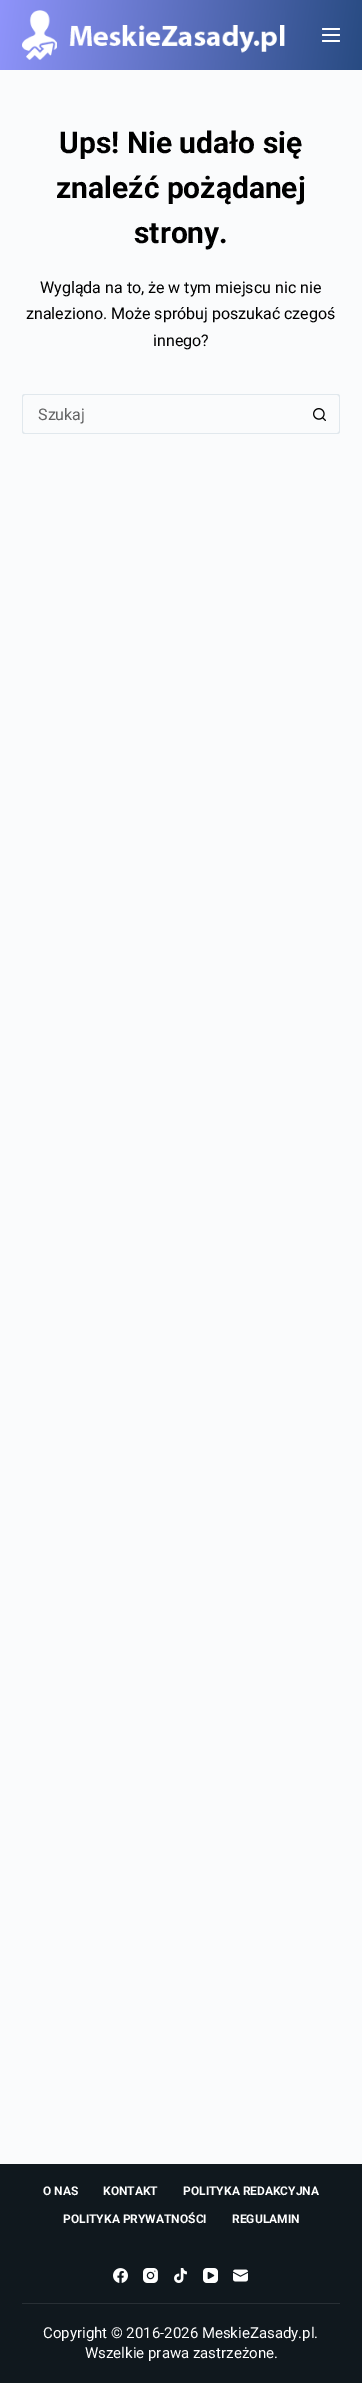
%!PS
<< /PageSize [362 2383] >> setpagedevice
/rgb { 3 { 255 div 3 1 roll } repeat setrgbcolor } def
/font { [ exch dup neg 0 0 3 -1 roll 0 0 ] selectfont } def
/roundrect { 5 dict begin { /r /h /w /y /x } { exch def } forall
  x r add y moveto x w add y 2 copy h add r arct x w add y h add x 1 index r arct
  x y h add x y r arct x y 2 copy exch w add exch r arct closepath end } def
/picture { 5 dict begin { /h /w /y /x /name } { exch def } forall
  gsave x y translate w h scale
  w h 8 [w 0 0 h 0 0] name (r) file false 3 colorimage grestore end } def
0 2383 translate 1 -1 scale
4 setmiterlimit
250 251 252 rgb
0 0 362 2383 rectfill
gsave 0 0 moveto 362 0 lineto 362 70 lineto 0 70 lineto closepath clip newpath
<< /ShadingType 2 /ColorSpace /DeviceRGB /Coords [-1.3 9 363 61] /Extend [true true] /Function << /FunctionType 2 /Domain [0 1] /C0 [0.561 0.58 0.984] /C1 [0.157 0.294 0.51] /N 1 >> >> shfill grestore
(img/1.rgb) 22 10 263 50 picture
255 255 255 rgb
322 28 18 2 1 roundrect fill
322 34 18 2 1 roundrect fill
322 40 18 2 1 roundrect fill
225 232 237 rgb
25 394 moveto 300 394 lineto 300 434 lineto 25 434 lineto 23 434 22 433 22 431 curveto 22 397 lineto 22 395 23 394 25 394 curveto closepath 25 395 moveto 300 395 lineto 300 433 lineto 25 433 lineto 24 433 23 432 23 431 curveto 23 397 lineto 23 396 24 395 25 395 curveto closepath eofill
300 394 moveto 337 394 lineto 339 394 340 395 340 397 curveto 340 431 lineto 340 433 339 434 337 434 curveto 300 434 lineto closepath 300 395 moveto 337 395 lineto 338 395 339 396 339 397 curveto 339 431 lineto 339 432 338 433 337 433 curveto 300 433 lineto closepath eofill
(img/2.rgb) 313 408 13 13 picture
16 24 30 rgb
0 2164 362 219 rectfill
(img/3.rgb) 113 2268 15 15 picture
(img/4.rgb) 143 2268 15 15 picture
(img/5.rgb) 174 2268 13 15 picture
(img/6.rgb) 203 2268 15 15 picture
(img/7.rgb) 233 2269 15 13 picture
40 47 53 rgb
22 2303 318 1 rectfill
/Roboto-Bold 30 font
0 0 0 rgb
[
  [(Ups! Nie udało się) 59 153]
  [(znaleźć pożądanej) 56 198]
  [(strony.) 134 243]
] { aload pop moveto show } forall
/Roboto-Regular 16 font
[
  [(Wygląda na to, że w tym miejscu nic nie) 40 293]
  [(znaleziono. Może spróbuj poszukać czegoś) 26 319]
  [(innego?) 153 346]
] { aload pop moveto show } forall
100 100 101 rgb
38 420 moveto (Szukaj) show
/Roboto-Bold 12 font
255 255 255 rgb
[
  [(O NAS) 43 2195]
  [(KONTAKT) 103 2195]
  [(POLITYKA REDAKCYJNA) 183 2195]
  [(POLITYKA PRYWATNOŚCI) 63 2223]
  [(REGULAMIN) 232 2223]
] { aload pop moveto show } forall
/Roboto-Regular 15 font
43 2338 moveto (Copyright © 2016-2026 MeskieZasady.pl.) show
85 2358 moveto (Wszelkie prawa zastrzeżone.) show
showpage
